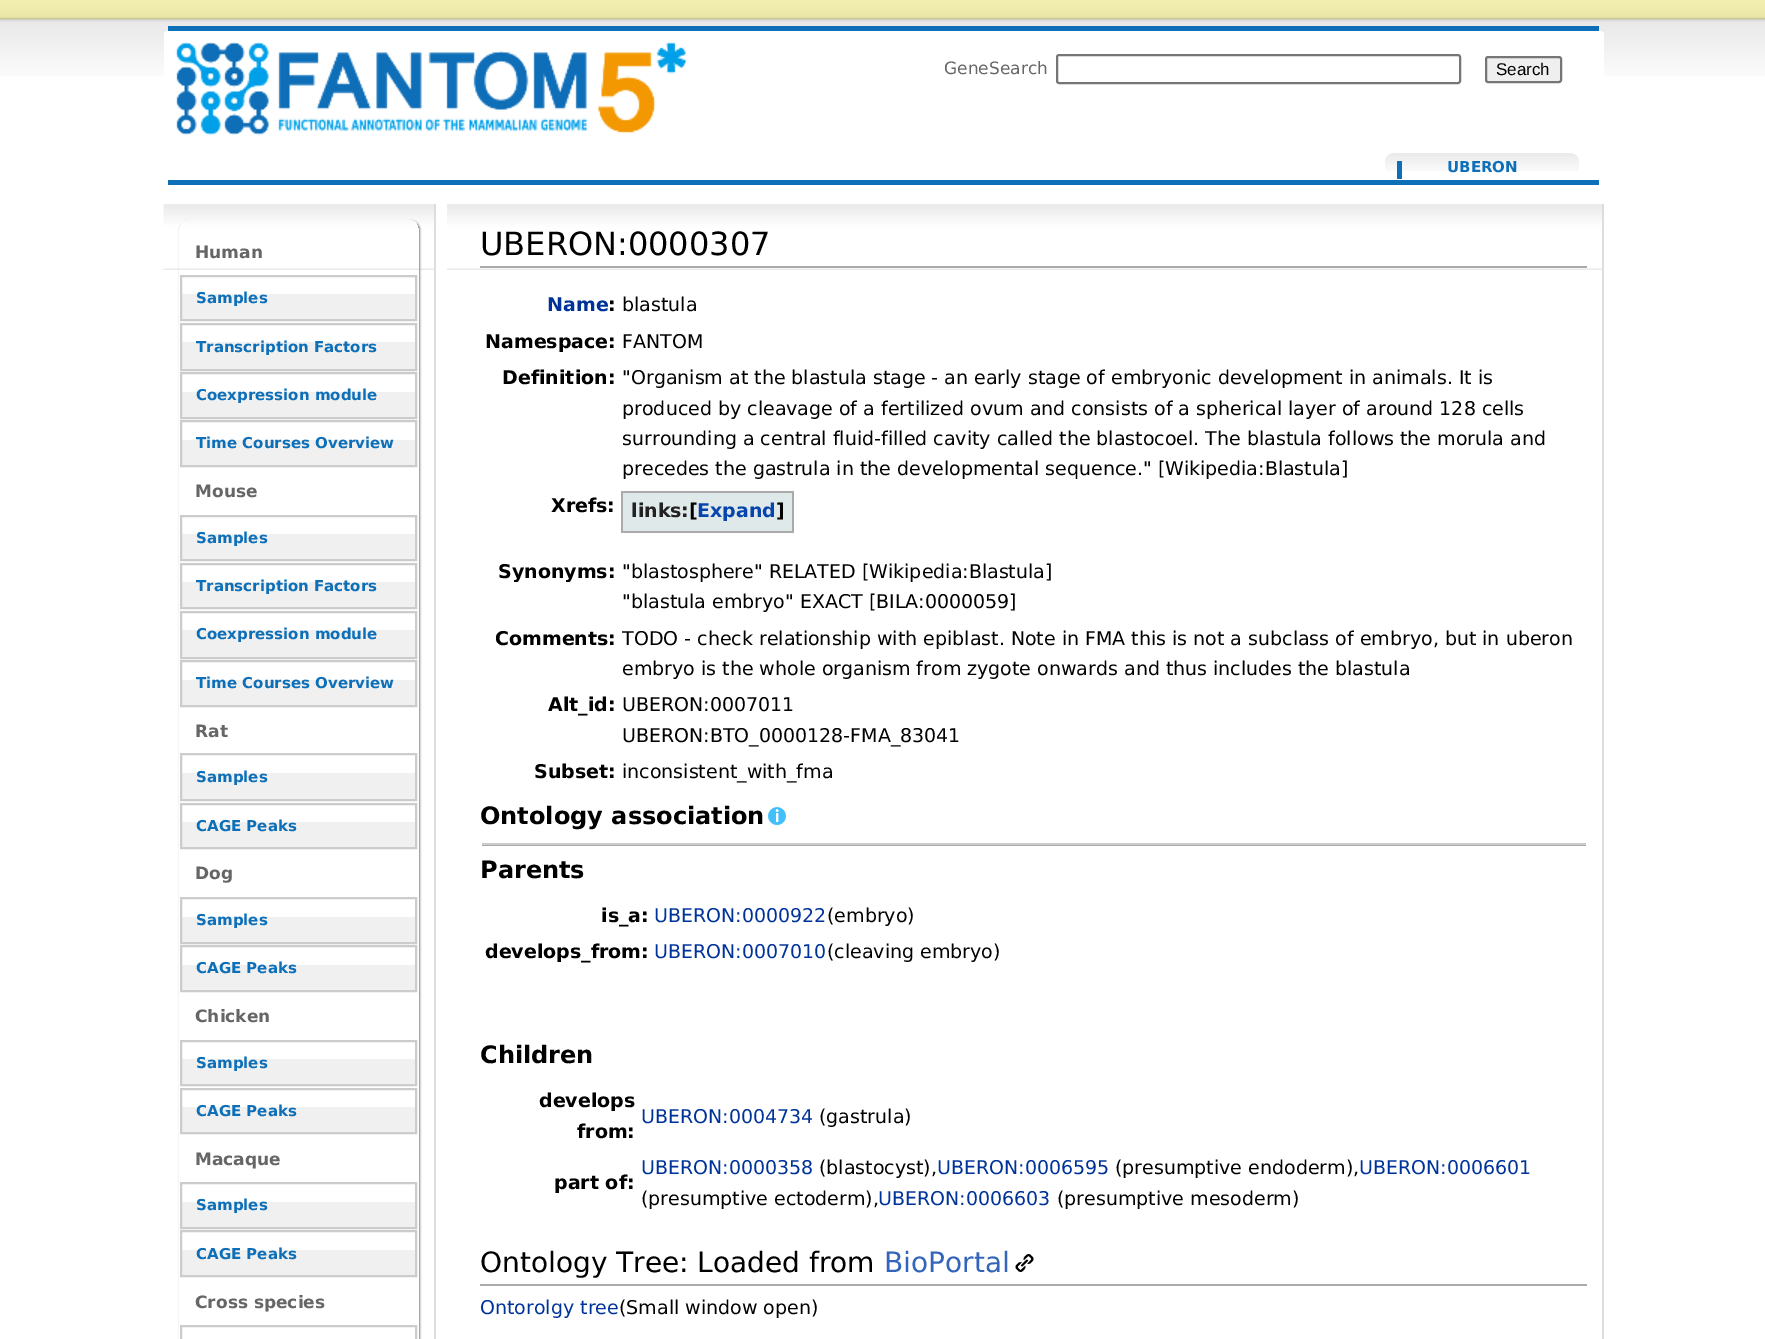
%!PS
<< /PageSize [1765 1339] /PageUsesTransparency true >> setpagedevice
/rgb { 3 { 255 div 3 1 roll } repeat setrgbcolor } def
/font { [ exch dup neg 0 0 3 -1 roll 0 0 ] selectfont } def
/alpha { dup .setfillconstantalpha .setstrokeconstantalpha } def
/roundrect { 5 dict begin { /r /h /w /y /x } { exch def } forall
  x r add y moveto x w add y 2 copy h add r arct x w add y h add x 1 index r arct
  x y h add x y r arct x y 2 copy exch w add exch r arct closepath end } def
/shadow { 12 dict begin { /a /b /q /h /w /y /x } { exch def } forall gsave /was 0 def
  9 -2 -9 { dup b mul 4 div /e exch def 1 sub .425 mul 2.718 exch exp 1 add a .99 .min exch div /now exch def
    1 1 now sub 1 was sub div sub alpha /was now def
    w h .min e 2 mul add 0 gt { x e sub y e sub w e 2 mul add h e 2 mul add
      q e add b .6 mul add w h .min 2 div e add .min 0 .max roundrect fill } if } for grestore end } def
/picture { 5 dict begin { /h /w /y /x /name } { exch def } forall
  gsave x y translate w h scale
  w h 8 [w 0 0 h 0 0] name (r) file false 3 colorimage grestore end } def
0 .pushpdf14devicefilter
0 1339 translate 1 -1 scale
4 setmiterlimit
255 255 255 rgb
0 0 1765 1339 rectfill
(img/1.rgb) 0 0 1765 76 picture
172 30 moveto 1594 30 lineto 1599 30 1604 32 1604 34 curveto 1604 176 lineto 1604 178 1599 180 1594 180 curveto 172 180 lineto 168 180 164 178 164 176 curveto 164 34 lineto 164 32 168 30 172 30 curveto closepath fill
(img/2.rgb) 175 42 512 94 picture
13 111 184 rgb
168 26 1431 5 rectfill
168 180 1431 5 rectfill
118 118 118 rgb
2 setlinewidth
1057 55 403 28 2 roundrect stroke
239 239 239 rgb
1486 57 75 25 2 roundrect gsave fill grestore
118 118 118 rgb
stroke
(img/3.rgb) 1385 153 194 18 picture
13 111 184 rgb
1397 161 5 18 rectfill
(img/4.rgb) 163 204 271 66 picture
221 221 221 rgb
434 204 2 1135 rectfill
gsave
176 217 moveto 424 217 lineto 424 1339 lineto 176 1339 lineto closepath 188 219 moveto 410 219 lineto 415 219 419 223 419 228 curveto 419 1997 lineto 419 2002 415 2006 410 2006 curveto 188 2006 lineto 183 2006 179 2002 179 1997 curveto 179 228 lineto 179 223 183 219 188 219 curveto closepath eoclip newpath
128 128 128 rgb
180 221 240 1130 9 1 1 shadow
grestore
240 240 240 rgb
182 294 233 25 rectfill
204 204 204 rgb
181 276 235 44 rectstroke
240 240 240 rgb
182 342 233 27 rectfill
204 204 204 rgb
181 324 235 46 rectstroke
240 240 240 rgb
182 392 233 25 rectfill
204 204 204 rgb
181 373 235 45 rectstroke
240 240 240 rgb
182 440 233 25 rectfill
204 204 204 rgb
181 421 235 45 rectstroke
240 240 240 rgb
182 534 233 25 rectfill
204 204 204 rgb
181 516 235 44 rectstroke
240 240 240 rgb
182 582 233 25 rectfill
204 204 204 rgb
181 564 235 44 rectstroke
240 240 240 rgb
182 630 233 27 rectfill
204 204 204 rgb
181 612 235 46 rectstroke
240 240 240 rgb
182 680 233 25 rectfill
204 204 204 rgb
181 661 235 45 rectstroke
240 240 240 rgb
182 773 233 26 rectfill
204 204 204 rgb
181 754 235 46 rectstroke
240 240 240 rgb
182 822 233 25 rectfill
204 204 204 rgb
181 804 235 44 rectstroke
240 240 240 rgb
182 917 233 25 rectfill
204 204 204 rgb
181 898 235 45 rectstroke
240 240 240 rgb
182 965 233 25 rectfill
204 204 204 rgb
181 946 235 45 rectstroke
240 240 240 rgb
182 1059 233 25 rectfill
204 204 204 rgb
181 1041 235 44 rectstroke
240 240 240 rgb
182 1107 233 25 rectfill
204 204 204 rgb
181 1089 235 44 rectstroke
240 240 240 rgb
182 1202 233 25 rectfill
204 204 204 rgb
181 1183 235 45 rectstroke
240 240 240 rgb
182 1250 233 25 rectfill
204 204 204 rgb
181 1231 235 45 rectstroke
181 1326 235 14 rectstroke
(img/5.rgb) 447 204 1155 66 picture
[
  [1602 204 2 1135 221 221 221]
  [480 266 1107 2 170 170 170]
  [621 491 173 2 170 170 170]
  [792 491 2 42 170 170 170]
  [621 531 173 2 170 170 170]
  [621 491 2 42 170 170 170]
  [623 493 169 38 224 233 233]
] { aload pop rgb rectfill } forall
(img/6.rgb) 768 807 18 18 picture
[
  [480 845 1107 1 170 170 170]
  [480 843 1107 2 204 204 204]
  [1586 843 1 5 255 255 255]
  [480 843 2 5 255 255 255]
  [480 1284 1107 2 170 170 170]
] { aload pop rgb rectfill } forall
(img/7.rgb) 1015 1254 19 18 picture
/DejaVuSans-Regular 17 font
102 102 102 rgb
944 74 moveto (GeneSearch) show
/LiberationSans-Regular 17 font
0 0 0 rgb
1496 75 moveto (Search) show
/DejaVuSans-Bold 15 font
13 111 184 rgb
1447 172 moveto (UBERON) show
/DejaVuSans-Bold 17 font
102 102 102 rgb
195 258 moveto (Human) show
/DejaVuSans-Bold 15 font
13 111 184 rgb
[
  [(Samples) 196 303]
  [(Transcription Factors) 196 352]
  [(Coexpression module) 196 400]
  [(Time Courses Overview) 196 448]
] { aload pop moveto show } forall
/DejaVuSans-Bold 17 font
102 102 102 rgb
195 497 moveto (Mouse) show
/DejaVuSans-Bold 15 font
13 111 184 rgb
[
  [(Samples) 196 543]
  [(Transcription Factors) 196 591]
  [(Coexpression module) 196 639]
  [(Time Courses Overview) 196 688]
] { aload pop moveto show } forall
/DejaVuSans-Bold 17 font
102 102 102 rgb
195 737 moveto (Rat) show
/DejaVuSans-Bold 15 font
13 111 184 rgb
196 782 moveto (Samples) show
196 831 moveto (CAGE Peaks) show
/DejaVuSans-Bold 17 font
102 102 102 rgb
195 879 moveto (Dog) show
/DejaVuSans-Bold 15 font
13 111 184 rgb
196 925 moveto (Samples) show
196 973 moveto (CAGE Peaks) show
/DejaVuSans-Bold 17 font
102 102 102 rgb
195 1022 moveto (Chicken) show
/DejaVuSans-Bold 15 font
13 111 184 rgb
196 1068 moveto (Samples) show
196 1116 moveto (CAGE Peaks) show
/DejaVuSans-Bold 17 font
102 102 102 rgb
195 1165 moveto (Macaque) show
/DejaVuSans-Bold 15 font
13 111 184 rgb
196 1210 moveto (Samples) show
196 1259 moveto (CAGE Peaks) show
/DejaVuSans-Bold 17 font
102 102 102 rgb
195 1308 moveto (Cross species) show
/DejaVuSans-Regular 32 font
0 0 0 rgb
480 255 moveto (UBERON:0000307) show
/DejaVuSans-Bold 19 font
0 51 153 rgb
547 311 moveto (Name) show
0 0 0 rgb
608 311 moveto (:) show
/DejaVuSans-Regular 19 font
622 311 moveto (blastula) show
/DejaVuSans-Bold 19 font
485 348 moveto (Namespace:) show
/DejaVuSans-Regular 19 font
622 348 moveto (FANTOM) show
/DejaVuSans-Bold 19 font
502 384 moveto (Definition:) show
/DejaVuSans-Regular 19 font
[
  [("Organism at the blastula stage - an early stage of embryonic development in animals. It is) 622 384]
  [(produced by cleavage of a fertilized ovum and consists of a spherical layer of around 128 cells) 622 415]
  [(surrounding a central fluid-filled cavity called the blastocoel. The blastula follows the morula and) 622 445]
  [(precedes the gastrula in the developmental sequence." [Wikipedia:Blastula]) 622 475]
] { aload pop moveto show } forall
/DejaVuSans-Bold 19 font
551 512 moveto (Xrefs:) show
34 34 34 rgb
631 517 moveto (links:) show
0 0 0 rgb
689 517 moveto ([) show
6 69 173 rgb
697 517 moveto (Expand) show
0 0 0 rgb
776 517 moveto (]) show
498 578 moveto (Synonyms:) show
/DejaVuSans-Regular 19 font
622 578 moveto ("blastosphere" RELATED [Wikipedia:Blastula]) show
622 608 moveto ("blastula embryo" EXACT [BILA:0000059]) show
/DejaVuSans-Bold 19 font
495 645 moveto (Comments:) show
/DejaVuSans-Regular 19 font
622 645 moveto (TODO - check relationship with epiblast. Note in FMA this is not a subclass of embryo, but in uberon) show
622 675 moveto (embryo is the whole organism from zygote onwards and thus includes the blastula) show
/DejaVuSans-Bold 19 font
548 711 moveto (Alt_id:) show
/DejaVuSans-Regular 19 font
622 711 moveto (UBERON:0007011) show
622 742 moveto (UBERON:BTO_0000128-FMA_83041) show
/DejaVuSans-Bold 19 font
534 778 moveto (Subset:) show
/DejaVuSans-Regular 19 font
622 778 moveto (inconsistent_with_fma) show
/DejaVuSans-Bold 24 font
480 824 moveto (Ontology association) show
480 878 moveto (Parents) show
/DejaVuSans-Bold 19 font
601 922 moveto (is_a:) show
/DejaVuSans-Regular 19 font
0 51 153 rgb
654 922 moveto (UBERON:0000922) show
0 0 0 rgb
827 922 moveto (\(embryo\)) show
/DejaVuSans-Bold 19 font
485 958 moveto (develops_from:) show
/DejaVuSans-Regular 19 font
0 51 153 rgb
654 958 moveto (UBERON:0007010) show
0 0 0 rgb
827 958 moveto (\(cleaving embryo\)) show
/DejaVuSans-Bold 24 font
480 1063 moveto (Children) show
/DejaVuSans-Bold 19 font
539 1107 moveto (develops) show
577 1138 moveto (from:) show
/DejaVuSans-Regular 19 font
0 51 153 rgb
641 1123 moveto (UBERON:0004734) show
0 0 0 rgb
819 1123 moveto (\(gastrula\)) show
/DejaVuSans-Bold 19 font
554 1189 moveto (part of:) show
/DejaVuSans-Regular 19 font
0 51 153 rgb
641 1174 moveto (UBERON:0000358) show
0 0 0 rgb
819 1174 moveto (\(blastocyst\),) show
0 51 153 rgb
937 1174 moveto (UBERON:0006595) show
0 0 0 rgb
1115 1174 moveto (\(presumptive endoderm\),) show
0 51 153 rgb
1359 1174 moveto (UBERON:0006601) show
0 0 0 rgb
641 1205 moveto (\(presumptive ectoderm\),) show
0 51 153 rgb
878 1205 moveto (UBERON:0006603) show
0 0 0 rgb
1057 1205 moveto (\(presumptive mesoderm\)) show
/DejaVuSans-Regular 28 font
480 1272 moveto (Ontology Tree: Loaded from) show
51 102 187 rgb
884 1272 moveto (BioPortal) show
/DejaVuSans-Regular 19 font
0 51 153 rgb
480 1314 moveto (Ontorolgy tree) show
0 0 0 rgb
619 1314 moveto (\(Small window open\)) show
.poppdf14devicefilter showpage
